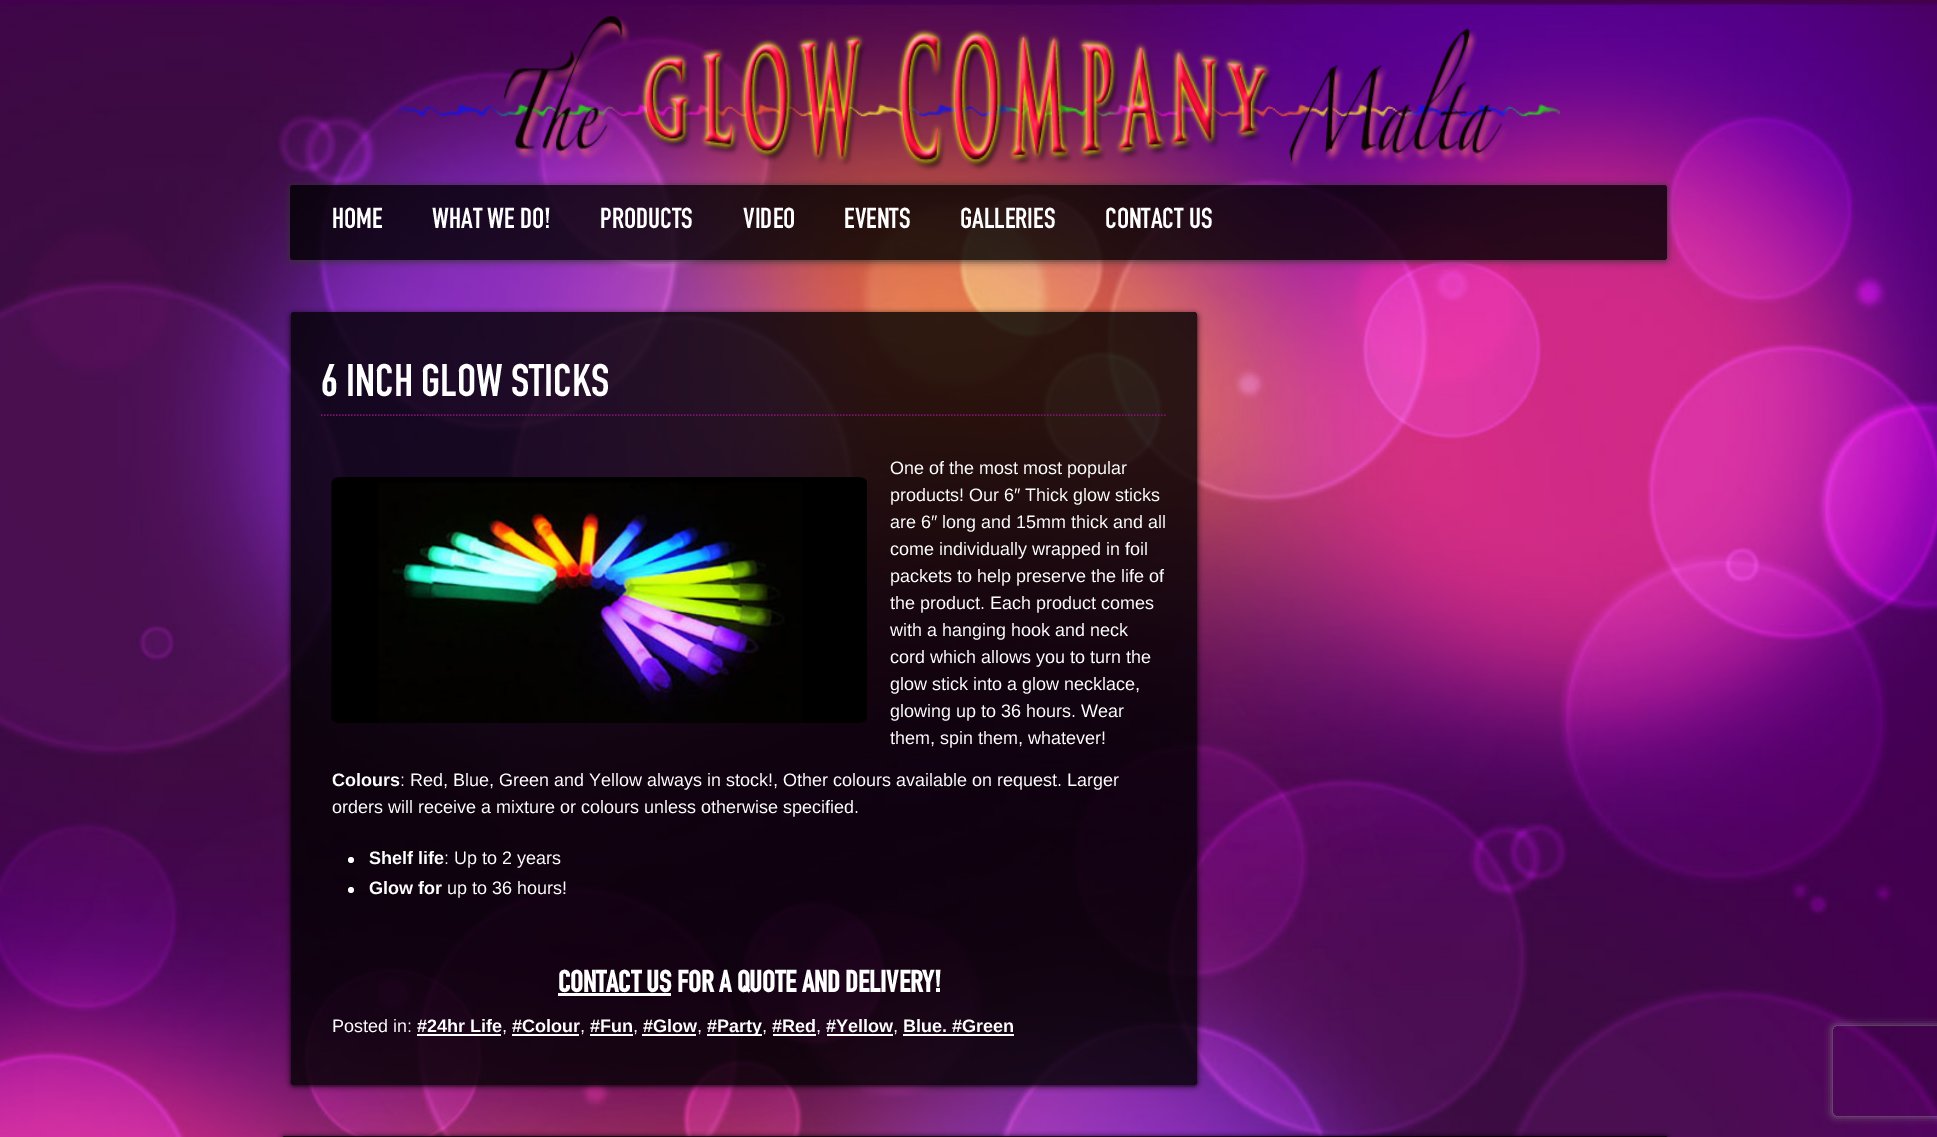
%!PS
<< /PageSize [1937 1137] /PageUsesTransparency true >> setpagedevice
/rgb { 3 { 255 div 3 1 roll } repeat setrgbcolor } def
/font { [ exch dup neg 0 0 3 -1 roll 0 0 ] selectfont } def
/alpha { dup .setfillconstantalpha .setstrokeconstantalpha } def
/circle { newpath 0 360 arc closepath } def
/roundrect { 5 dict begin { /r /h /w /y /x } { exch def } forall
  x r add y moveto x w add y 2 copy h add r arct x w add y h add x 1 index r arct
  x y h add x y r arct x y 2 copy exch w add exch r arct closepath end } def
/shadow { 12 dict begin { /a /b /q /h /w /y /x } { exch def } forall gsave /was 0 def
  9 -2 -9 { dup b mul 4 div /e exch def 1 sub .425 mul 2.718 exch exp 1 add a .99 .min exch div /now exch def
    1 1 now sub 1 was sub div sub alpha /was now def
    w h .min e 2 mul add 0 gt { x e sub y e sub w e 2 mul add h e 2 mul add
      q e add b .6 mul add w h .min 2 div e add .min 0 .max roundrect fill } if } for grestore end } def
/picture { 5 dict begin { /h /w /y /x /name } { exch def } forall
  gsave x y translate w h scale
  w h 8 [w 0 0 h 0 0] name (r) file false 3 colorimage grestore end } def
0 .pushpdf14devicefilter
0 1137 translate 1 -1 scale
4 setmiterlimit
255 255 255 rgb
0 0 1937 1137 rectfill
(img/1.rgb) 0 0 1937 1137 picture
(img/2.rgb) 396 16 1164 155 picture
gsave
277 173 moveto 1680 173 lineto 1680 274 lineto 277 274 lineto closepath 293 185 moveto 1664 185 lineto 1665.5 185 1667 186.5 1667 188 curveto 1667 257 lineto 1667 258.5 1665.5 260 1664 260 curveto 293 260 lineto 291.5 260 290 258.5 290 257 curveto 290 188 lineto 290 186.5 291.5 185 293 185 curveto closepath eoclip newpath
51 51 51 rgb
290 186 1377 75 3 4 1 shadow
grestore
0.8 alpha
0 0 0 rgb
290 185 1377 75 3 roundrect fill
gsave
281 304 moveto 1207 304 lineto 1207 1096 lineto 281 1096 lineto closepath 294 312 moveto 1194 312 lineto 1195.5 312 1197 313.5 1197 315 curveto 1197 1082 lineto 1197 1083.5 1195.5 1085 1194 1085 curveto 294 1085 lineto 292.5 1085 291 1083.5 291 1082 curveto 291 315 lineto 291 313.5 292.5 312 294 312 curveto closepath eoclip newpath
1 alpha
291 314 906 772 3 3 1 shadow
grestore
291 312 906 773 3 roundrect fill
1 alpha
127 18 111 rgb
1.5 setlinewidth
[1.5 1.5] 0 setdash
321 415 moveto 1167 415 lineto stroke
(img/3.rgb) 331 477 536 246 picture
255 255 255 rgb
351 860 3 circle fill
351 890 3 circle fill
[
  [558 993 113 3 255 255 255]
  [417 1034 84 2 255 255 255]
  [512 1034 67 2 255 255 255]
  [590 1034 43 2 255 255 255]
  [642 1034 54 2 255 255 255]
  [707 1034 55 2 255 255 255]
  [773 1034 43 2 255 255 255]
  [827 1034 66 2 255 255 255]
  [903 1034 111 2 255 255 255]
] { aload pop rgb rectfill } forall
gsave
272 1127 moveto 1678 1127 lineto 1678 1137 lineto 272 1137 lineto closepath 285 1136 moveto 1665 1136 lineto 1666.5 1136 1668 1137.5 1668 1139 curveto 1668 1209 lineto 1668 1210.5 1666.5 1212 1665 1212 curveto 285 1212 lineto 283.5 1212 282 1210.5 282 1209 curveto 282 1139 lineto 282 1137.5 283.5 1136 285 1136 curveto closepath eoclip newpath
0 0 0 rgb
282 1137 1386 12 3 3 1 shadow
grestore
0.8 alpha
0 0 0 rgb
282 1136 1386 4 3 roundrect fill
gsave
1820 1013 moveto 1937 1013 lineto 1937 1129 lineto 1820 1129 lineto closepath 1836 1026 moveto 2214 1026 lineto 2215.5 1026 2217 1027.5 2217 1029 curveto 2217 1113 lineto 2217 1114.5 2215.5 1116 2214 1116 curveto 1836 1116 lineto 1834.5 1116 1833 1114.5 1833 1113 curveto 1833 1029 lineto 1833 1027.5 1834.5 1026 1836 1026 curveto closepath eoclip newpath
1 alpha
128 128 128 rgb
1833 1026 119 90 3 4 1 shadow
grestore
/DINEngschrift-Regular 28.5 font
1 alpha
255 255 255 rgb
[
  [(HOME) 332 228]
  [(WHAT WE DO!) 432 228]
  [(PRODUCTS) 600 228]
  [(VIDEO) 743 228]
  [(EVENTS) 844 228]
  [(GALLERIES) 960 228]
  [(CONTACT US) 1105 228]
] { aload pop moveto show } forall
/DINEngschrift-Regular 45 font
321 396 moveto (6 INCH GLOW STICKS) show
/LiberationSans-Regular 18 font
[
  [(One of the most most popular) 890 474]
  [(products! Our 6″ Thick glow sticks) 890 501]
  [(are 6″ long and 15mm thick and all) 890 528]
  [(come individually wrapped in foil) 890 555]
  [(packets to help preserve the life of) 890 582]
  [(the product. Each product comes) 890 609]
  [(with a hanging hook and neck) 890 636]
  [(cord which allows you to turn the) 890 663]
  [(glow stick into a glow necklace,) 890 690]
  [(glowing up to 36 hours. Wear) 890 717]
  [(them, spin them, whatever!) 890 744]
] { aload pop moveto show } forall
/LiberationSans-Bold 18 font
332 786 moveto (Colours) show
/LiberationSans-Regular 18 font
400 786 moveto (: Red, Blue, Green and Yellow always in stock!, Other colours available on request. Larger) show
332 813 moveto (orders will receive a mixture or colours unless otherwise specified.) show
/LiberationSans-Bold 18 font
369 864 moveto (Shelf life) show
/LiberationSans-Regular 18 font
444 864 moveto (: Up to 2 years) show
/LiberationSans-Bold 18 font
369 894 moveto (Glow for) show
/LiberationSans-Regular 18 font
447 894 moveto (up to 36 hours!) show
/DINEngschrift-Bold 30 font
558 992 moveto (CONTACT US FOR A QUOTE AND DELIVERY!) show
/LiberationSans-Regular 18 font
332 1032 moveto (Posted in:) show
/LiberationSans-Bold 18 font
417 1032 moveto (#24hr Life) show
/LiberationSans-Regular 18 font
502 1032 moveto (,) show
/LiberationSans-Bold 18 font
512 1032 moveto (#Colour) show
/LiberationSans-Regular 18 font
580 1032 moveto (,) show
/LiberationSans-Bold 18 font
590 1032 moveto (#Fun) show
/LiberationSans-Regular 18 font
633 1032 moveto (,) show
/LiberationSans-Bold 18 font
643 1032 moveto (#Glow) show
/LiberationSans-Regular 18 font
697 1032 moveto (,) show
/LiberationSans-Bold 18 font
707 1032 moveto (#Party) show
/LiberationSans-Regular 18 font
762 1032 moveto (,) show
/LiberationSans-Bold 18 font
772 1032 moveto (#Red) show
/LiberationSans-Regular 18 font
816 1032 moveto (,) show
/LiberationSans-Bold 18 font
826 1032 moveto (#Yellow) show
/LiberationSans-Regular 18 font
893 1032 moveto (,) show
/LiberationSans-Bold 18 font
903 1032 moveto (Blue. #Green) show
.poppdf14devicefilter showpage
